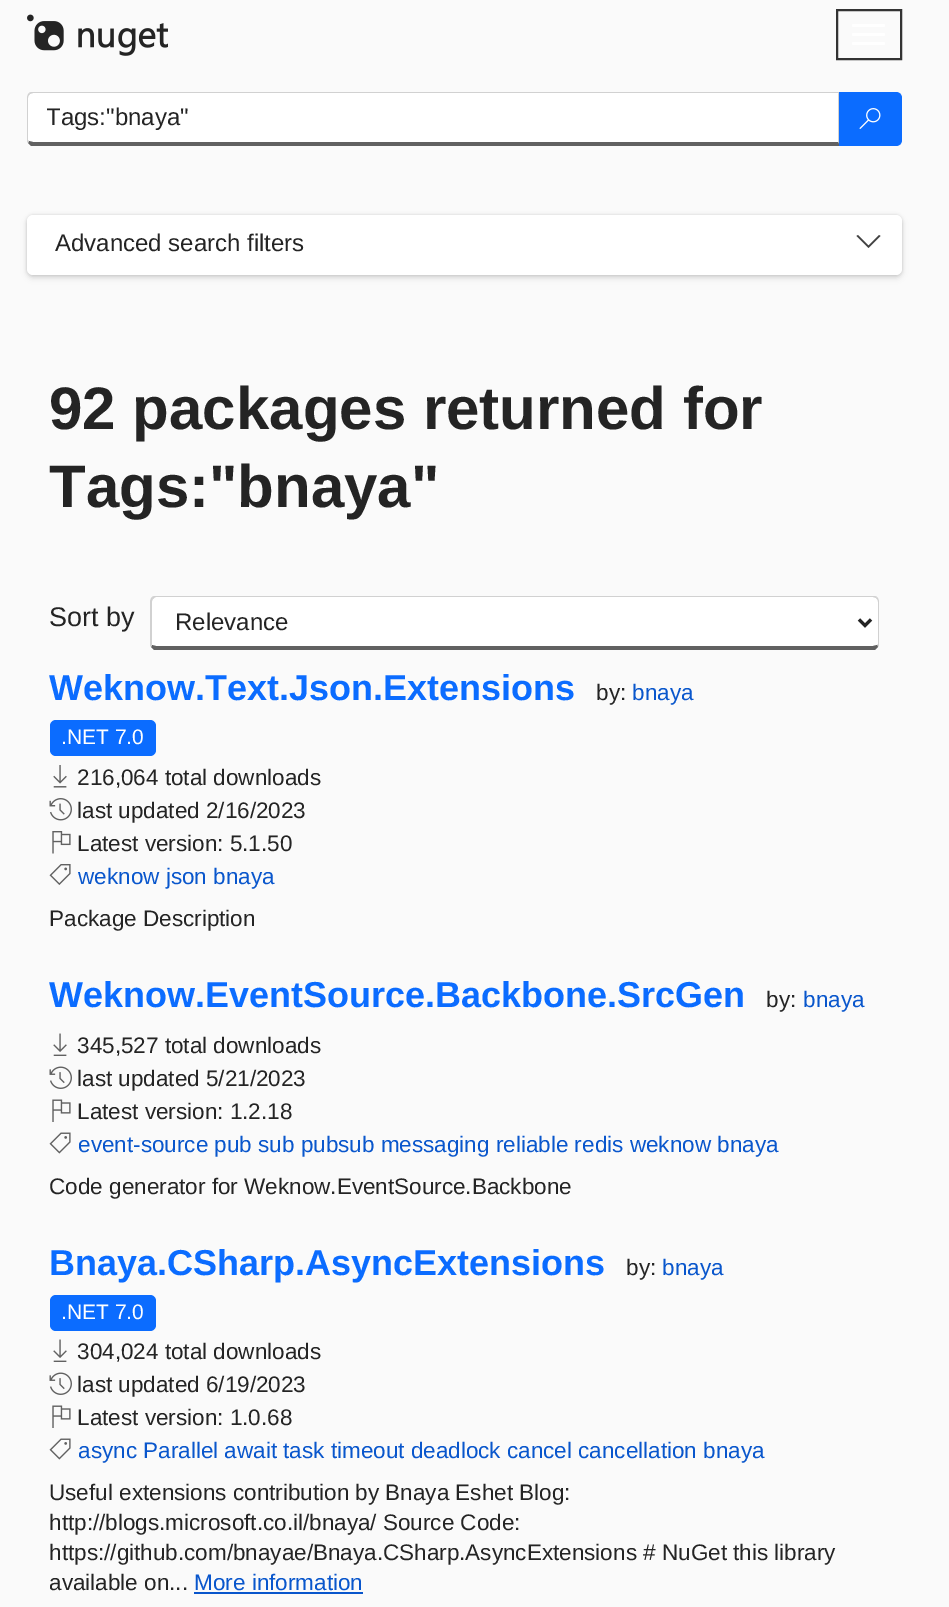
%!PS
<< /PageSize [949 1607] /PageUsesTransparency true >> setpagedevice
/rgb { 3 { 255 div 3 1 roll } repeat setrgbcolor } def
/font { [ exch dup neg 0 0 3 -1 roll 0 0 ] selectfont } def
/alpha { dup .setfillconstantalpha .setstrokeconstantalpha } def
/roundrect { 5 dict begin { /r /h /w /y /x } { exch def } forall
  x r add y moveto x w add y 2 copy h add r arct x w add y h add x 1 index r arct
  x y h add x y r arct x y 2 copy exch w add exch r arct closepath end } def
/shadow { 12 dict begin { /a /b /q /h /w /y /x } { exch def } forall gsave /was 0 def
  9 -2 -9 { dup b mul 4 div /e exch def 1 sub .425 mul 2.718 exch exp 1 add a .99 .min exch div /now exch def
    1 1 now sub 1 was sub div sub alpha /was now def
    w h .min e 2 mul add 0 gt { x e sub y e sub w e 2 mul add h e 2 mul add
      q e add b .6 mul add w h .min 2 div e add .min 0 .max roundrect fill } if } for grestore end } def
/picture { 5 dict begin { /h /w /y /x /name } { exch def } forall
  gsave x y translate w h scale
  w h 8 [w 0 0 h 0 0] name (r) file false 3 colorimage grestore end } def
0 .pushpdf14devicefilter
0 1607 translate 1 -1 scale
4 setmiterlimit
250 250 250 rgb
0 0 949 1607 rectfill
(img/1.rgb) 27 14 141 42 picture
51 51 51 rgb
2 setlinewidth
837 10 64 49 rectstroke
255 255 255 rgb
852 24 33 3 1.5 roundrect fill
852 33 33 3 1.5 roundrect fill
852 42 33 3 1.5 roundrect fill
33 93 moveto 838 93 lineto 838 142 lineto 33 142 lineto 31 142 28 141 28 140 curveto 28 98 lineto 28 95 31 93 33 93 curveto closepath fill
209 209 209 rgb
33 92 moveto 32 92 30 92 29 93 curveto 30 94 lineto 33 93 lineto 838 93 lineto 838 94 lineto 840 92 lineto closepath fill
840 146 moveto 840 92 lineto 838 94 lineto 838 142 lineto closepath fill
97 97 97 rgb
840 146 moveto 31 146 lineto 28 143 lineto 29 141 lineto 33 142 lineto 838 142 lineto closepath fill
209 209 209 rgb
27 98 moveto 27 140 lineto 27 141 27 142 28 143 curveto 29 141 lineto 28 140 lineto 28 98 lineto 28 96 29 95 30 94 curveto 29 93 lineto 28 94 27 96 27 98 curveto closepath fill
11 108 255 rgb
839 92 moveto 896 92 lineto 899.5 92 902 94.5 902 98 curveto 902 140 lineto 902 143.5 899.5 146 896 146 curveto 839 146 lineto closepath fill
(img/2.rgb) 859 108 22 21 picture
0 0 0 rgb
27 218 875 60 6 3 0.14 shadow
27 215 875 60 6 1.5 0.12 shadow
255 255 255 rgb
27 215 875 60 6 roundrect fill
66 66 66 rgb
879 235 moveto 880.5 236 lineto 868.5 248 lineto 856.5 236 lineto 858 235 lineto 868.5 245.5 lineto closepath fill
255 255 255 rgb
156 597 moveto 873 597 lineto 875 597 878 599 878 602 curveto 878 644 lineto 878 645 875 646 873 646 curveto 156 646 lineto 154 646 152 645 152 644 curveto 152 602 lineto 152 599 154 597 156 597 curveto closepath fill
209 209 209 rgb
156 596 moveto 155 596 153 596 152 597 curveto 153 599 lineto 154 598 155 597 156 597 curveto 873 597 lineto 876 598 lineto 877 597 lineto 876 596 874 596 873 596 curveto closepath fill
877 597 moveto 878 598 879 600 879 602 curveto 879 644 lineto 879 645 879 646 878 647 curveto 877 645 lineto 878 644 lineto 878 602 lineto 878 600 877 599 876 598 curveto closepath fill
97 97 97 rgb
154 650 moveto 151 647 lineto 152 645 lineto 156 646 lineto 873 646 lineto 877 645 lineto 878 647 lineto 875 650 lineto closepath fill
209 209 209 rgb
150 602 moveto 150 644 lineto 150 645 150 646 151 647 curveto 152 645 lineto 152 609 lineto 152 607 151 601 153 599 curveto 152 597 lineto 151 598 150 600 150 602 curveto closepath fill
36 36 36 rgb
3 setlinewidth
859 619.5 moveto 865 625.5 lineto 871 619.5 lineto stroke
11 108 255 rgb
50 720 106 36 6 roundrect fill
(img/3.rgb) 53 765 14 23 picture
(img/4.rgb) 49 798 23 23 picture
(img/5.rgb) 52 831 19 23 picture
(img/6.rgb) 49 864 22 21 picture
(img/7.rgb) 53 1033 14 23 picture
(img/8.rgb) 49 1066 23 23 picture
(img/9.rgb) 52 1099 19 23 picture
(img/10.rgb) 49 1132 22 22 picture
50 1295 106 36 6 roundrect fill
(img/7.rgb) 53 1339 14 23 picture
(img/8.rgb) 49 1372 23 23 picture
(img/9.rgb) 52 1405 19 23 picture
(img/10.rgb) 49 1438 22 22 picture
9 86 204 rgb
194 1592 169 2 rectfill
gsave
47 105 774 27 rectclip
/LiberationSans-Regular 24 font
36 36 36 rgb
46 125 moveto (Tags:"bnaya") show
grestore
/LiberationSans-Regular 24 font
36 36 36 rgb
55 251 moveto (Advanced search filters) show
/LiberationSans-Bold 60 font
49 429 moveto (92 packages returned for) show
49 507 moveto (Tags:"bnaya") show
/LiberationSans-Regular 27 font
49 626 moveto (Sort by) show
/LiberationSans-Regular 24 font
175 630 moveto (Relevance) show
/LiberationSans-Bold 36 font
11 108 255 rgb
49 700 moveto (Weknow.Text.Json.Extensions) show
/LiberationSans-Regular 22.5 font
36 36 36 rgb
596 700 moveto (by:) show
9 86 204 rgb
632 700 moveto (bnaya) show
/LiberationSans-Regular 21 font
255 255 255 rgb
61 744 moveto (.NET 7.0) show
/LiberationSans-Regular 22.5 font
36 36 36 rgb
[
  [(216,064 total downloads) 77 785]
  [(last updated 2/16/2023) 77 818]
  [(Latest version: 5.1.50) 77 851]
] { aload pop moveto show } forall
9 86 204 rgb
78 884 moveto (weknow json bnaya) show
36 36 36 rgb
49 926 moveto (Package Description) show
/LiberationSans-Bold 36 font
11 108 255 rgb
49 1007 moveto (Weknow.EventSource.Backbone.SrcGen) show
/LiberationSans-Regular 22.5 font
36 36 36 rgb
766 1007 moveto (by:) show
9 86 204 rgb
803 1007 moveto (bnaya) show
36 36 36 rgb
[
  [(345,527 total downloads) 77 1053]
  [(last updated 5/21/2023) 77 1086]
  [(Latest version: 1.2.18) 77 1119]
] { aload pop moveto show } forall
9 86 204 rgb
78 1152 moveto (event-source pub sub pubsub messaging reliable redis weknow bnaya) show
36 36 36 rgb
49 1194 moveto (Code generator for Weknow.EventSource.Backbone) show
/LiberationSans-Bold 36 font
11 108 255 rgb
49 1275 moveto (Bnaya.CSharp.AsyncExtensions) show
/LiberationSans-Regular 22.5 font
36 36 36 rgb
626 1275 moveto (by:) show
9 86 204 rgb
662 1275 moveto (bnaya) show
/LiberationSans-Regular 21 font
255 255 255 rgb
61 1319 moveto (.NET 7.0) show
/LiberationSans-Regular 22.5 font
36 36 36 rgb
[
  [(304,024 total downloads) 77 1359]
  [(last updated 6/19/2023) 77 1392]
  [(Latest version: 1.0.68) 77 1425]
] { aload pop moveto show } forall
9 86 204 rgb
78 1458 moveto (async Parallel await task timeout deadlock cancel cancellation bnaya) show
36 36 36 rgb
[
  [(Useful extensions contribution by Bnaya Eshet Blog:) 49 1500]
  [(http://blogs.microsoft.co.il/bnaya/ Source Code:) 49 1530]
  [(https://github.com/bnayae/Bnaya.CSharp.AsyncExtensions # NuGet this library) 49 1560]
  [(available on...) 49 1590]
] { aload pop moveto show } forall
9 86 204 rgb
194 1590 moveto (More information) show
.poppdf14devicefilter showpage
